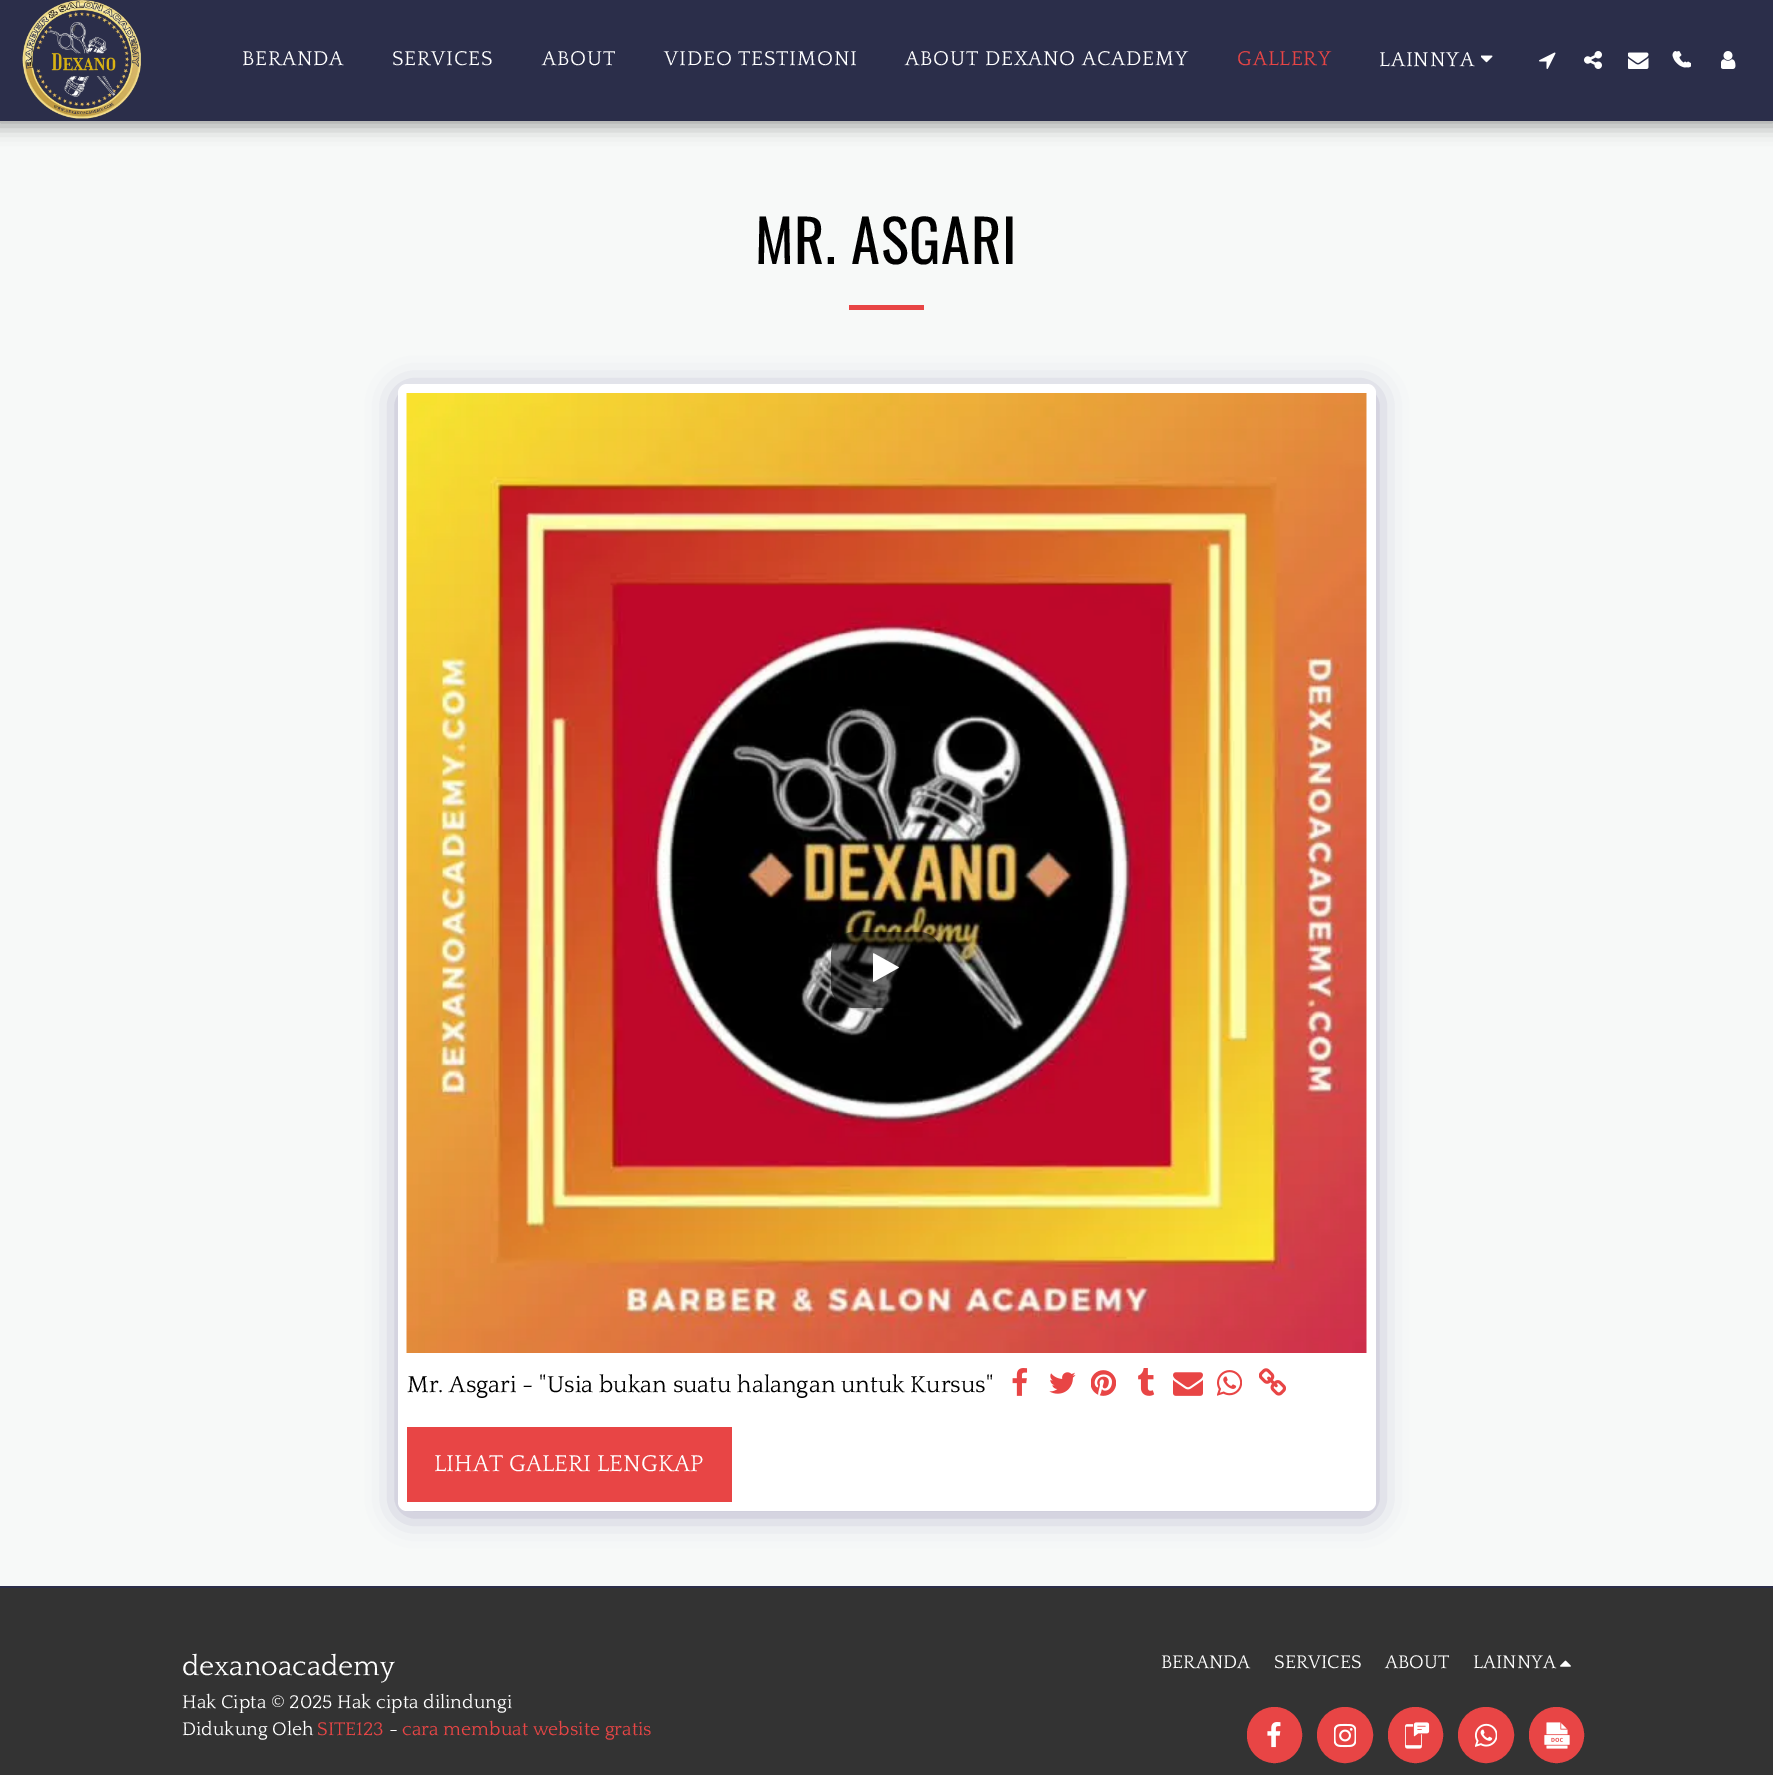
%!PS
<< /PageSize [1773 1775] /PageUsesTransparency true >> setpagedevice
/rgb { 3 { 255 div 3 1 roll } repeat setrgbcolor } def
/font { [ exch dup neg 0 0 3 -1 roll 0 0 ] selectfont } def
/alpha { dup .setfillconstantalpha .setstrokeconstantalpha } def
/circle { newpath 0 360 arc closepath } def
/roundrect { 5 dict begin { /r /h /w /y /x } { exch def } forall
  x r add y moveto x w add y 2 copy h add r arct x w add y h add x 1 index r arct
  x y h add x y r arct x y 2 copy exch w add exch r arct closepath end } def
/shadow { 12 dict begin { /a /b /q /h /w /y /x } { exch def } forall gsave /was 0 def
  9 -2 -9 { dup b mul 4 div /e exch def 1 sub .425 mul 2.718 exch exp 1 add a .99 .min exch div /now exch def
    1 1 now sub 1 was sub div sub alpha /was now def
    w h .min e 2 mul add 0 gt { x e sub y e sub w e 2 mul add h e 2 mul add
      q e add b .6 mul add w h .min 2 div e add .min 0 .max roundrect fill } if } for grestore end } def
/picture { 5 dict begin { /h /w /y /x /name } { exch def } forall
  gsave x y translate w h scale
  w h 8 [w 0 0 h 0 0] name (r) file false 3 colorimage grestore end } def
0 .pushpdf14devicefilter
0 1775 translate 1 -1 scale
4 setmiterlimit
247 249 248 rgb
0 0 1773 1775 rectfill
0 0 0 rgb
-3 0 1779 126 0 9 0.35 shadow
43 46 74 rgb
0 0 1773 121 rectfill
(img/1.rgb) 22 0 119 119 picture
(img/2.rgb) 1481 55 12 8 picture
(img/3.rgb) 1539 52 17 17 picture
(img/4.rgb) 1584 51 18 18 picture
(img/5.rgb) 1628 52 21 17 picture
(img/6.rgb) 1676 51 15 17 picture
(img/7.rgb) 1672 51 15 17 picture
(img/8.rgb) 1721 51 15 18 picture
232 69 69 rgb
849 305 75 5 rectfill
77 63 122 rgb
398 389 978 1126 9 15 0.4 shadow
255 255 255 rgb
398 384 978 1127 9 roundrect fill
(img/9.rgb) 406 393 961 960 picture
0.57 alpha
0 0 0 rgb
831 932 111 76 23 roundrect fill
1 alpha
(img/10.rgb) 873 953 26 29 picture
(img/11.rgb) 1012 1368 16 28 picture
(img/12.rgb) 1049 1372 27 22 picture
(img/13.rgb) 1091 1370 25 26 picture
(img/14.rgb) 1138 1368 17 28 picture
(img/15.rgb) 1173 1372 30 24 picture
(img/16.rgb) 1217 1370 25 26 picture
(img/17.rgb) 1259 1368 27 28 picture
[
  [407 1427 325 75 232 69 69]
  [0 1588 1773 187 51 51 51]
  [0 1586 1773 2 43 46 74]
] { aload pop rgb rectfill } forall
(img/18.rgb) 1560 1660 11 7 picture
232 69 69 rgb
1248 1708 53 54 26.5 roundrect gsave fill grestore
2 setlinewidth
stroke
(img/19.rgb) 1267 1722 14 26 picture
1345 1735 27 circle gsave fill grestore
stroke
(img/20.rgb) 1334 1723 22 25 picture
1389 1708 53 54 26.5 roundrect gsave fill grestore
stroke
(img/21.rgb) 1405 1722 25 27 picture
1486 1735 27 circle gsave fill grestore
stroke
(img/22.rgb) 1475 1723 22 24 picture
1530 1708 53 54 26.5 roundrect gsave fill grestore
stroke
(img/23.rgb) 1544 1722 26 27 picture
/Quattrocento-Regular 21 font
255 255 255 rgb
242 65 moveto 0.75 0 (BERANDA) ashow
392 65 moveto 0.75 0 (SERVICES) ashow
542 65 moveto 0.75 0 (ABOUT) ashow
664 65 moveto 0.75 0 (VIDEO TESTIMONI) ashow
905 65 moveto 0.75 0 (ABOUT DEXANO ACADEMY) ashow
232 69 69 rgb
1237 65 moveto 0.75 0 (GALLERY) ashow
255 255 255 rgb
1379 66 moveto 0.75 0 (LAINNYA) ashow
/Oswald-Regular 58.5 font
0 0 0 rgb
755 264 moveto 0.75 0 (MR. ASGARI) ashow
/Quattrocento-Regular 24 font
407 1392 moveto (Mr. Asgari - "Usia bukan suatu halangan untuk Kursus") show
255 255 255 rgb
434 1471 moveto (LIHAT GALERI LENGKAP) show
/Quattrocento-Regular 28.75 font
182 1675 moveto (dexanoacademy) show
/Quattrocento-Regular 19.25 font
182 1708 moveto (Hak Cipta © 2025 Hak cipta dilindungi) show
182 1735 moveto (Didukung Oleh) show
232 69 69 rgb
317 1735 moveto (SITE123) show
255 255 255 rgb
389 1735 moveto (-) show
232 69 69 rgb
402 1735 moveto (cara membuat website gratis) show
255 255 255 rgb
[
  [(BERANDA) 1161 1668]
  [(SERVICES) 1274 1668]
  [(ABOUT) 1385 1668]
  [(LAINNYA) 1473 1668]
] { aload pop moveto show } forall
.poppdf14devicefilter showpage
